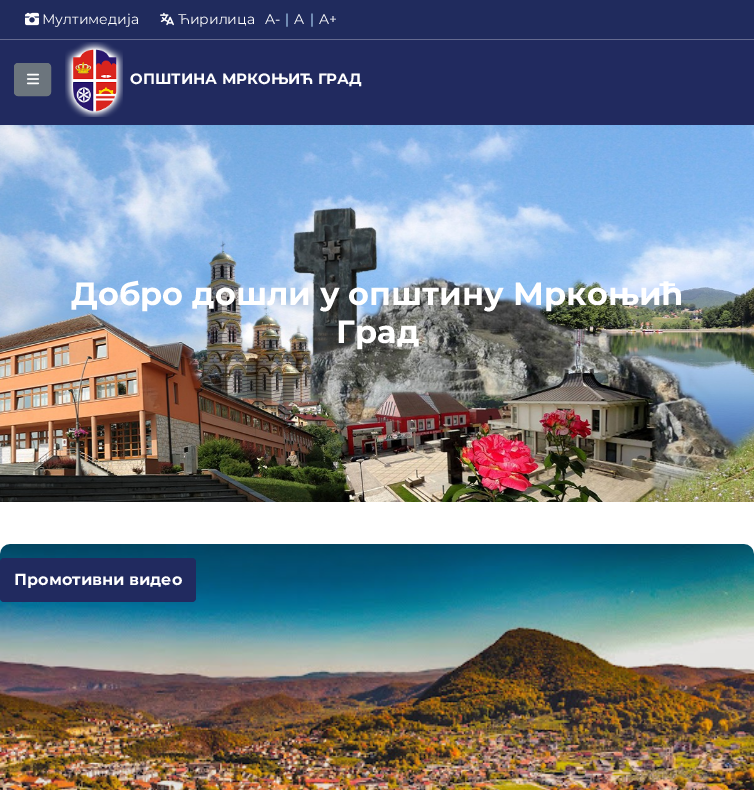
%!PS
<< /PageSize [754 790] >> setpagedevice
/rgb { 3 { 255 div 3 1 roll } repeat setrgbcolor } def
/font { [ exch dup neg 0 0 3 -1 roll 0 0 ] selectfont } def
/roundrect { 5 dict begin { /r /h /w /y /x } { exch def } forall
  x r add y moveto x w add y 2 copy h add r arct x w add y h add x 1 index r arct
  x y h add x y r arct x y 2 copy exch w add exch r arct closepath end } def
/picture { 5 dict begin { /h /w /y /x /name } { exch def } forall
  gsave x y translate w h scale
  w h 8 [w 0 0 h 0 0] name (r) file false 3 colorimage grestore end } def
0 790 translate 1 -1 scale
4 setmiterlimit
255 255 255 rgb
0 0 754 790 rectfill
32 43 93 rgb
0 0 754 39 rectfill
33 42 95 rgb
0 40 754 85 rectfill
(img/1.rgb) 25 12 14 14 picture
(img/2.rgb) 160 12 14 14 picture
100 106 143 rgb
0 39 754 1 rectfill
108 117 125 rgb
14.5 63.5 36 32 3.5 roundrect gsave fill grestore
stroke
(img/3.rgb) 26 73 14 12 picture
(img/4.rgb) 65 42 58 75 picture
(img/5.rgb) 0 125 754 377 picture
(img/6.rgb) 0 544 754 246 picture
33 42 95 rgb
0 558 196 44 4 roundrect fill
/Montserrat-Regular 14 font
255 255 255 rgb
[
  [(Мултимедија) 42 24]
  [(Ћирилица) 178 24]
  [(A-) 265 24]
] { aload pop moveto show } forall
182 223 255 rgb
285 24 moveto (|) show
255 255 255 rgb
294 24 moveto (A) show
182 223 255 rgb
310 24 moveto (|) show
255 255 255 rgb
319 24 moveto (A+) show
/Montserrat-Bold 15 font
130 84 moveto (ОПШТИНА МРКОЊИЋ ГРАД) show
/Montserrat-Bold 32 font
71 305 moveto (Добро дошли у општину Мркоњић) show
336 343 moveto (Град) show
/Montserrat-Bold 16 font
14 585 moveto (Промотивни видео) show
showpage
